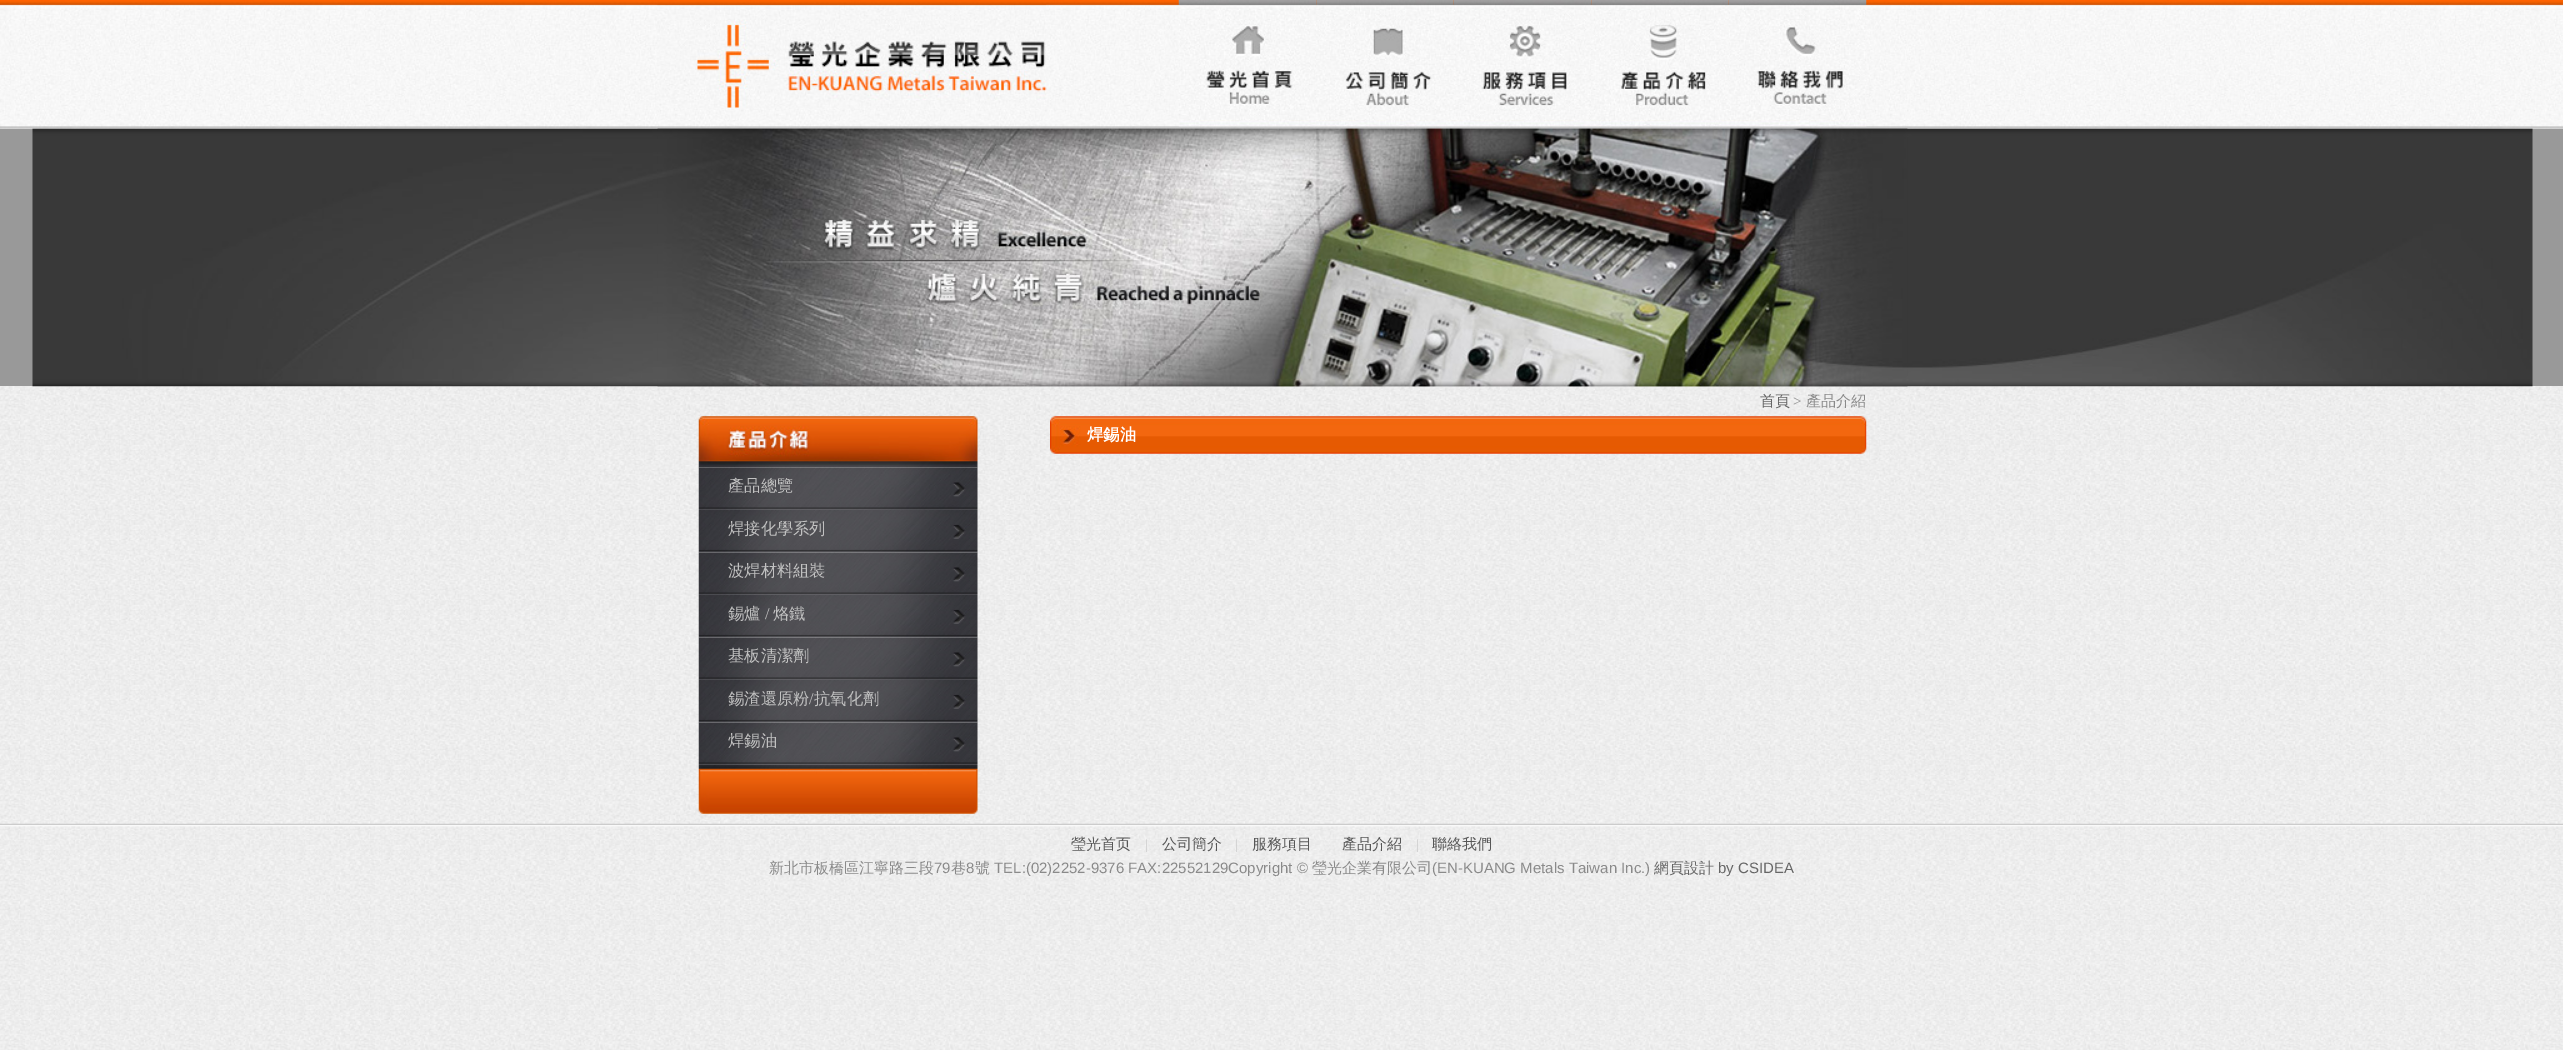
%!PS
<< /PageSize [2563 1050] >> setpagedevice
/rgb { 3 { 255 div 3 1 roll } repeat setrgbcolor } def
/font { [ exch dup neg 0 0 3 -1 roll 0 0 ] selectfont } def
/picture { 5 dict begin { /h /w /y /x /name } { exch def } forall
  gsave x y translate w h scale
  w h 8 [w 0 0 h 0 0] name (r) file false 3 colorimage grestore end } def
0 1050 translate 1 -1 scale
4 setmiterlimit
255 255 255 rgb
0 0 2563 1050 rectfill
(img/1.rgb) 0 128 2563 922 picture
(img/2.rgb) 0 0 2563 129 picture
(img/3.rgb) 658 5 1249 124 picture
(img/4.rgb) 657 4 390 104 picture
(img/5.rgb) 1178 0 139 127 picture
(img/6.rgb) 1316 0 138 127 picture
(img/7.rgb) 1453 0 139 127 picture
(img/8.rgb) 1591 0 138 127 picture
(img/9.rgb) 1728 0 139 127 picture
153 153 153 rgb
0 129 2563 257 rectfill
(img/10.rgb) 32 128 2501 259 picture
(img/11.rgb) 657 128 1251 259 picture
(img/12.rgb) 1050 416 817 38 picture
(img/13.rgb) 698 416 280 52 picture
(img/14.rgb) 698 467 280 43 picture
(img/15.rgb) 698 510 280 43 picture
(img/16.rgb) 698 552 280 43 picture
(img/17.rgb) 698 595 280 43 picture
(img/18.rgb) 698 637 280 43 picture
(img/19.rgb) 698 680 280 43 picture
(img/20.rgb) 698 722 280 43 picture
(img/21.rgb) 698 765 280 49 picture
(img/22.rgb) 0 823 2563 4 picture
/WenQuanYiZenHei-Medium 15 font
102 102 102 rgb
1760 406 moveto (首頁) show
/LiberationSerif-Regular 15 font
138 138 138 rgb
1793 406 moveto (>) show
/WenQuanYiZenHei-Medium 15 font
1806 406 moveto (產品介紹) show
/WenQuanYiZenHei-Bold 16.25 font
255 255 255 rgb
1087 440 moveto (焊錫油) show
/WenQuanYiZenHei-Medium 16.25 font
193 193 193 rgb
[
  [(產品總覽) 728 491]
  [(焊接化學系列) 728 534]
  [(波焊材料組裝) 728 576]
  [(錫爐) 728 619]
] { aload pop moveto show } forall
/LiberationSerif-Regular 16.25 font
765 619 moveto (/) show
/WenQuanYiZenHei-Medium 16.25 font
[
  [(烙鐵) 773 619]
  [(基板清潔劑) 728 661]
  [(錫渣還原粉) 728 704]
] { aload pop moveto show } forall
/LiberationSerif-Regular 16.25 font
809 704 moveto (/) show
/WenQuanYiZenHei-Medium 16.25 font
814 704 moveto (抗氧化劑) show
728 746 moveto (焊錫油) show
/WenQuanYiZenHei-Medium 15 font
87 87 87 rgb
1071 849 moveto (瑩光首页) show
/LiberationSerif-Regular 14 font
204 204 204 rgb
1145 849 moveto (|) show
/WenQuanYiZenHei-Medium 15 font
87 87 87 rgb
1162 849 moveto (公司簡介) show
/LiberationSerif-Regular 14 font
204 204 204 rgb
1235 849 moveto (|) show
/WenQuanYiZenHei-Medium 15 font
87 87 87 rgb
1252 849 moveto (服務項目) show
1342 849 moveto (產品介紹) show
/LiberationSerif-Regular 14 font
204 204 204 rgb
1416 849 moveto (|) show
/WenQuanYiZenHei-Medium 15 font
87 87 87 rgb
1432 849 moveto (聯絡我們) show
138 138 138 rgb
769 873 moveto (新北市板橋區江寧路三段) show
/LiberationSans-Regular 15 font
934 873 moveto (79) show
/WenQuanYiZenHei-Medium 15 font
951 873 moveto (巷) show
/LiberationSans-Regular 15 font
966 873 moveto (8) show
/WenQuanYiZenHei-Medium 15 font
975 873 moveto (號) show
/LiberationSans-Regular 15 font
994 873 moveto (TEL:\(02\)2252-9376 FAX:22552129Copyright ©) show
/WenQuanYiZenHei-Medium 15 font
1312 873 moveto (瑩光企業有限公司) show
/LiberationSans-Regular 15 font
1432 873 moveto (\(EN-KUANG Metals Taiwan Inc.\)) show
/WenQuanYiZenHei-Medium 15 font
102 102 102 rgb
1654 873 moveto (網頁設計) show
/LiberationSans-Regular 15 font
1718 873 moveto (by CSIDEA) show
showpage
